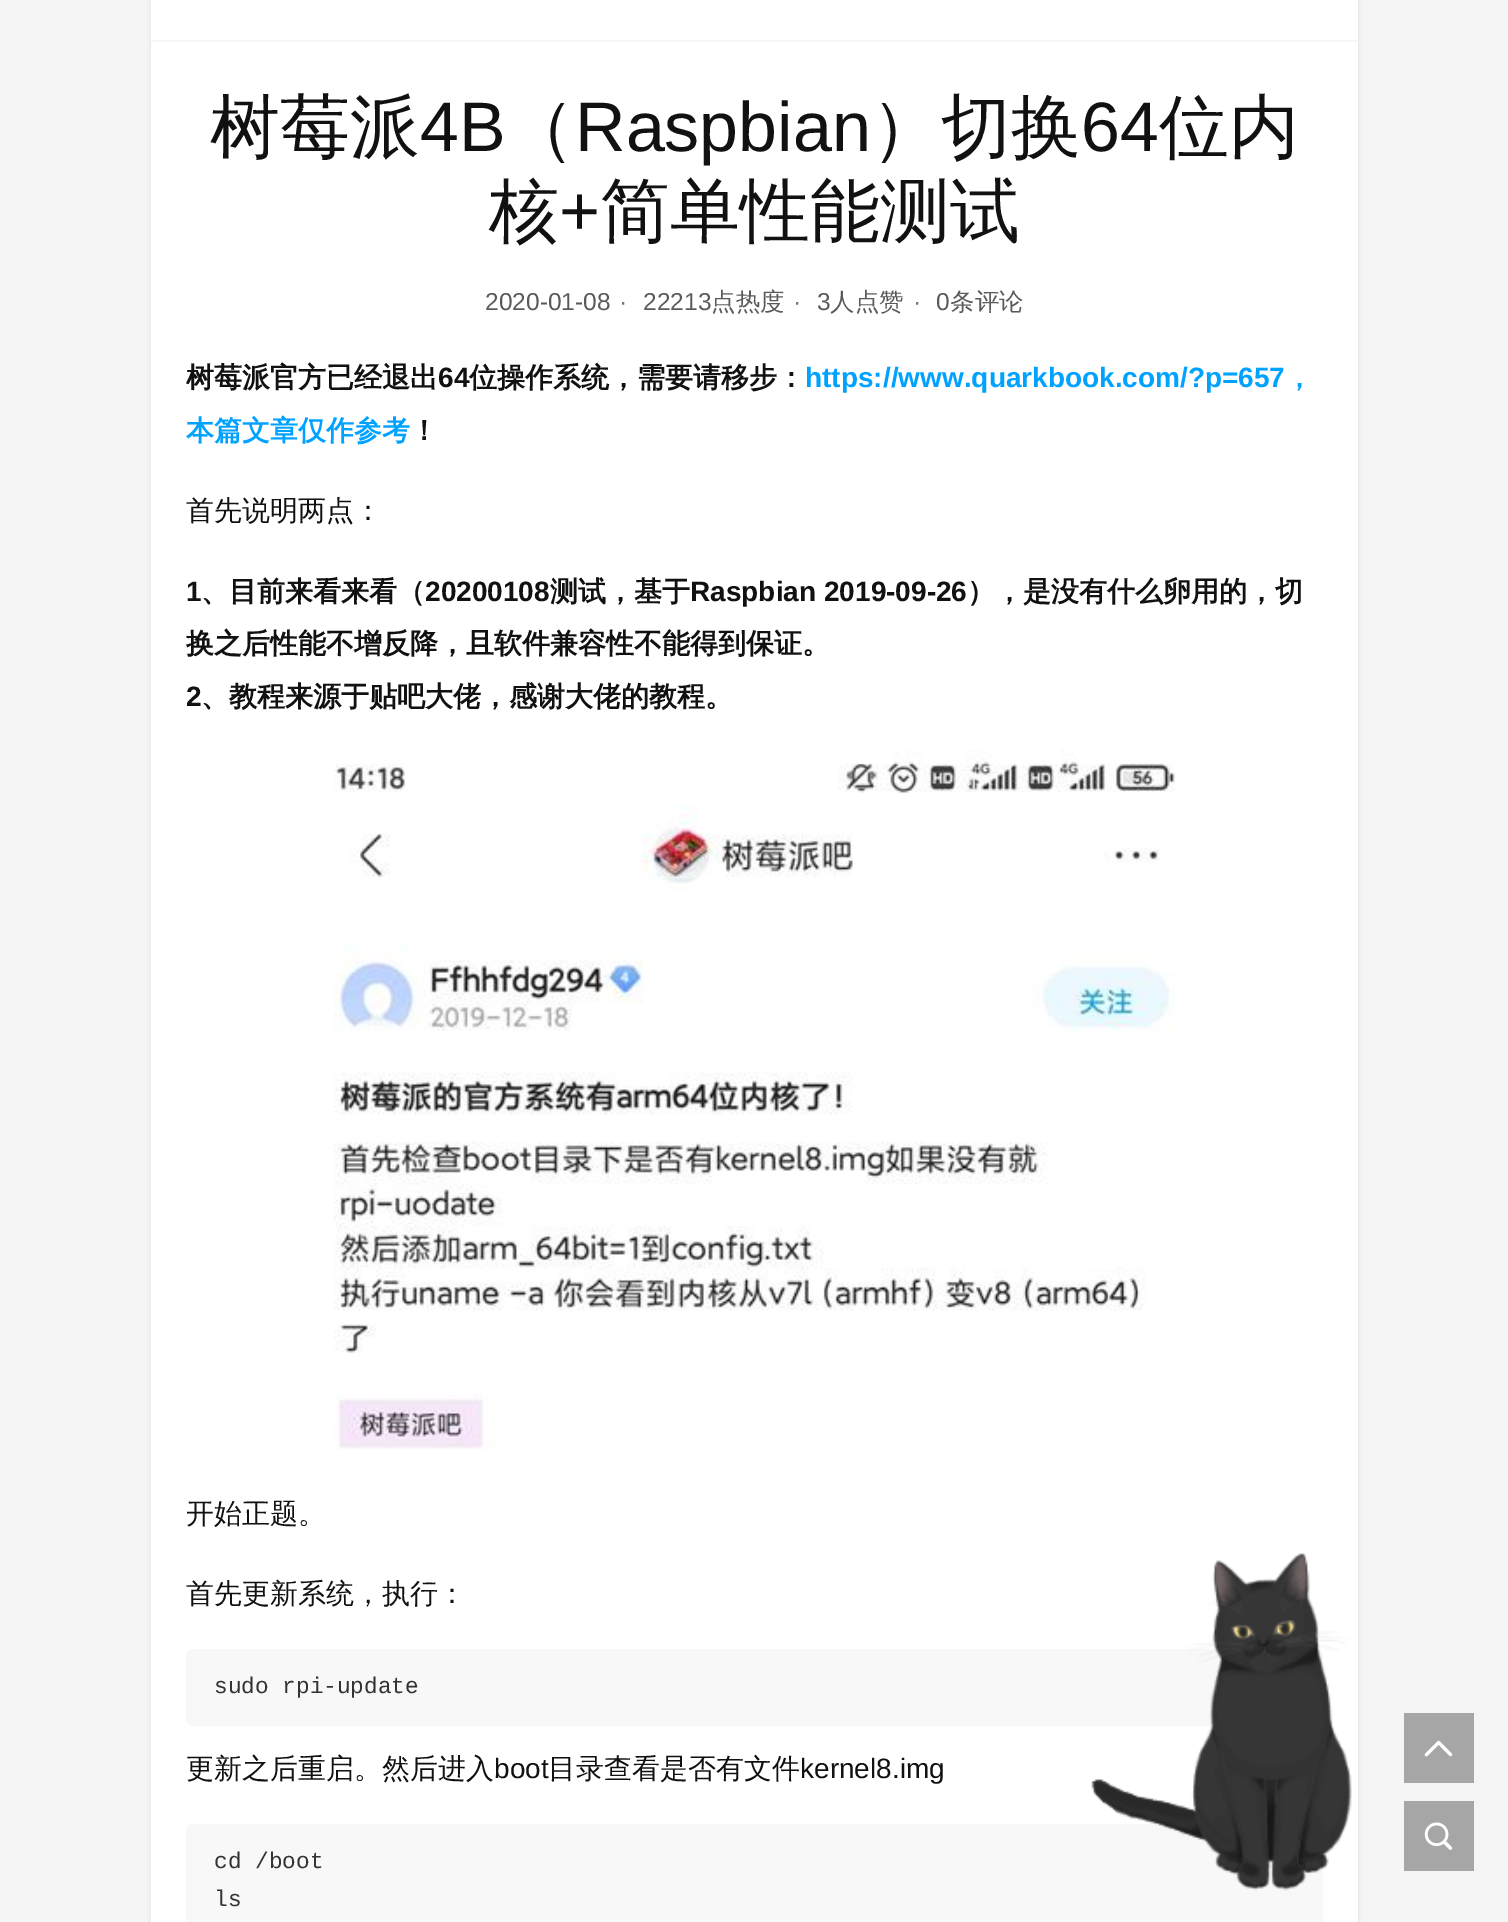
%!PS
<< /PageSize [1508 1922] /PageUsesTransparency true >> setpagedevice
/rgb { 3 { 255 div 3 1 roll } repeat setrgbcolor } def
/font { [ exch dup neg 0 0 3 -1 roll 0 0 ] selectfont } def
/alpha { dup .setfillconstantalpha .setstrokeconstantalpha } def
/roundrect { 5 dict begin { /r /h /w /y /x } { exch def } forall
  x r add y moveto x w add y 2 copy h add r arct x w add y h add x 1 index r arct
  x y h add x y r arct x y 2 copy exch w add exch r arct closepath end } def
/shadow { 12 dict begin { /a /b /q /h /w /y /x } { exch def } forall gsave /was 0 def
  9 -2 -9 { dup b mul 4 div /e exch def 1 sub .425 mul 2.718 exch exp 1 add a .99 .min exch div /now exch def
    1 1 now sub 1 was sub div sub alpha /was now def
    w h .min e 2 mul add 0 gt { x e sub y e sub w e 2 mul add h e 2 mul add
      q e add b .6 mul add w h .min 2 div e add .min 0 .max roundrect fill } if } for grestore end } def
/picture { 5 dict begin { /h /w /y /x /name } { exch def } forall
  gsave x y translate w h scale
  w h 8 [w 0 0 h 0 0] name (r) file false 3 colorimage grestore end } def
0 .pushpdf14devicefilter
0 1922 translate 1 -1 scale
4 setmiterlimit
245 245 245 rgb
0 0 1508 1922 rectfill
0 0 0 rgb
151 -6 1207 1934 0 2 0.1 shadow
255 255 255 rgb
151 0 1207 1922 rectfill
247 247 247 rgb
151 40 1207 2 rectfill
(img/1.rgb) 333 750 842 700 picture
248 248 248 rgb
186 1649 1137 77 7 roundrect fill
186 1824 1137 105 7 roundrect fill
(img/2.rgb) 1091 1553 261 338 picture
166 166 166 rgb
1404 1713 70 70 rectfill
(img/3.rgb) 1424 1740 29 17 picture
1404 1801 70 70 rectfill
(img/4.rgb) 1424 1822 29 28 picture
/WenQuanYiZenHei-Medium 70 font
17 17 17 rgb
210 151 moveto (树莓派) show
/LiberationSans-Regular 70 font
420 151 moveto (4B) show
/WenQuanYiZenHei-Medium 70 font
505 151 moveto (（) show
/LiberationSans-Regular 70 font
575 151 moveto (Raspbian) show
/WenQuanYiZenHei-Medium 70 font
871 151 moveto (）切换) show
/LiberationSans-Regular 70 font
1081 151 moveto (64) show
/WenQuanYiZenHei-Medium 70 font
1159 151 moveto (位内) show
489 235 moveto (核) show
/LiberationSans-Regular 70 font
559 235 moveto (+) show
/WenQuanYiZenHei-Medium 70 font
600 235 moveto (简单性能测试) show
/LiberationSans-Regular 24.5 font
90 90 90 rgb
485 310 moveto (2020-01-08) show
113 119 124 rgb
619 310 moveto (·) show
90 90 90 rgb
643 310 moveto (22213) show
/WenQuanYiZenHei-Medium 24.5 font
711 310 moveto (点热度) show
/LiberationSans-Regular 24.5 font
113 119 124 rgb
793 310 moveto (·) show
90 90 90 rgb
817 310 moveto (3) show
/WenQuanYiZenHei-Medium 24.5 font
830 310 moveto (人点赞) show
/LiberationSans-Regular 24.5 font
113 119 124 rgb
913 310 moveto (·) show
90 90 90 rgb
936 310 moveto (0) show
/WenQuanYiZenHei-Medium 24.5 font
950 310 moveto (条评论) show
/WenQuanYiZenHei-Bold 28 font
17 17 17 rgb
186 387 moveto (树莓派官方已经退出) show
/LiberationSans-Bold 28 font
438 387 moveto (64) show
/WenQuanYiZenHei-Bold 28 font
469 387 moveto (位操作系统，需要请移步：) show
/LiberationSans-Bold 28 font
0 162 255 rgb
805 387 moveto (https://www.quarkbook.com/?p=657) show
/WenQuanYiZenHei-Bold 28 font
1285 387 moveto (，) show
186 440 moveto (本篇文章仅作参考) show
17 17 17 rgb
410 440 moveto (！) show
/WenQuanYiZenHei-Medium 28 font
186 520 moveto (首先说明两点：) show
/LiberationSans-Bold 28 font
186 601 moveto (1) show
/WenQuanYiZenHei-Bold 28 font
201 601 moveto (、目前来看来看（) show
/LiberationSans-Bold 28 font
425 601 moveto (20200108) show
/WenQuanYiZenHei-Bold 28 font
550 601 moveto (测试，基于) show
/LiberationSans-Bold 28 font
690 601 moveto (Raspbian 2019-09-26) show
/WenQuanYiZenHei-Bold 28 font
967 601 moveto (），是没有什么卵用的，切) show
186 653 moveto (换之后性能不增反降，且软件兼容性不能得到保证。) show
/LiberationSans-Bold 28 font
186 706 moveto (2) show
/WenQuanYiZenHei-Bold 28 font
201 706 moveto (、教程来源于贴吧大佬，感谢大佬的教程。) show
/WenQuanYiZenHei-Medium 28 font
186 1523 moveto (开始正题。) show
186 1603 moveto (首先更新系统，执行：) show
/LiberationMono-Regular 22.75 font
51 51 51 rgb
214 1693 moveto (sudo rpi-update) show
/WenQuanYiZenHei-Medium 28 font
17 17 17 rgb
186 1778 moveto (更新之后重启。然后进入) show
/LiberationSans-Regular 28 font
494 1778 moveto (boot) show
/WenQuanYiZenHei-Medium 28 font
548 1778 moveto (目录查看是否有文件) show
/LiberationSans-Regular 28 font
800 1778 moveto (kernel8.img) show
/LiberationMono-Regular 22.75 font
51 51 51 rgb
214 1868 moveto (cd /boot) show
214 1906 moveto (ls) show
.poppdf14devicefilter showpage
